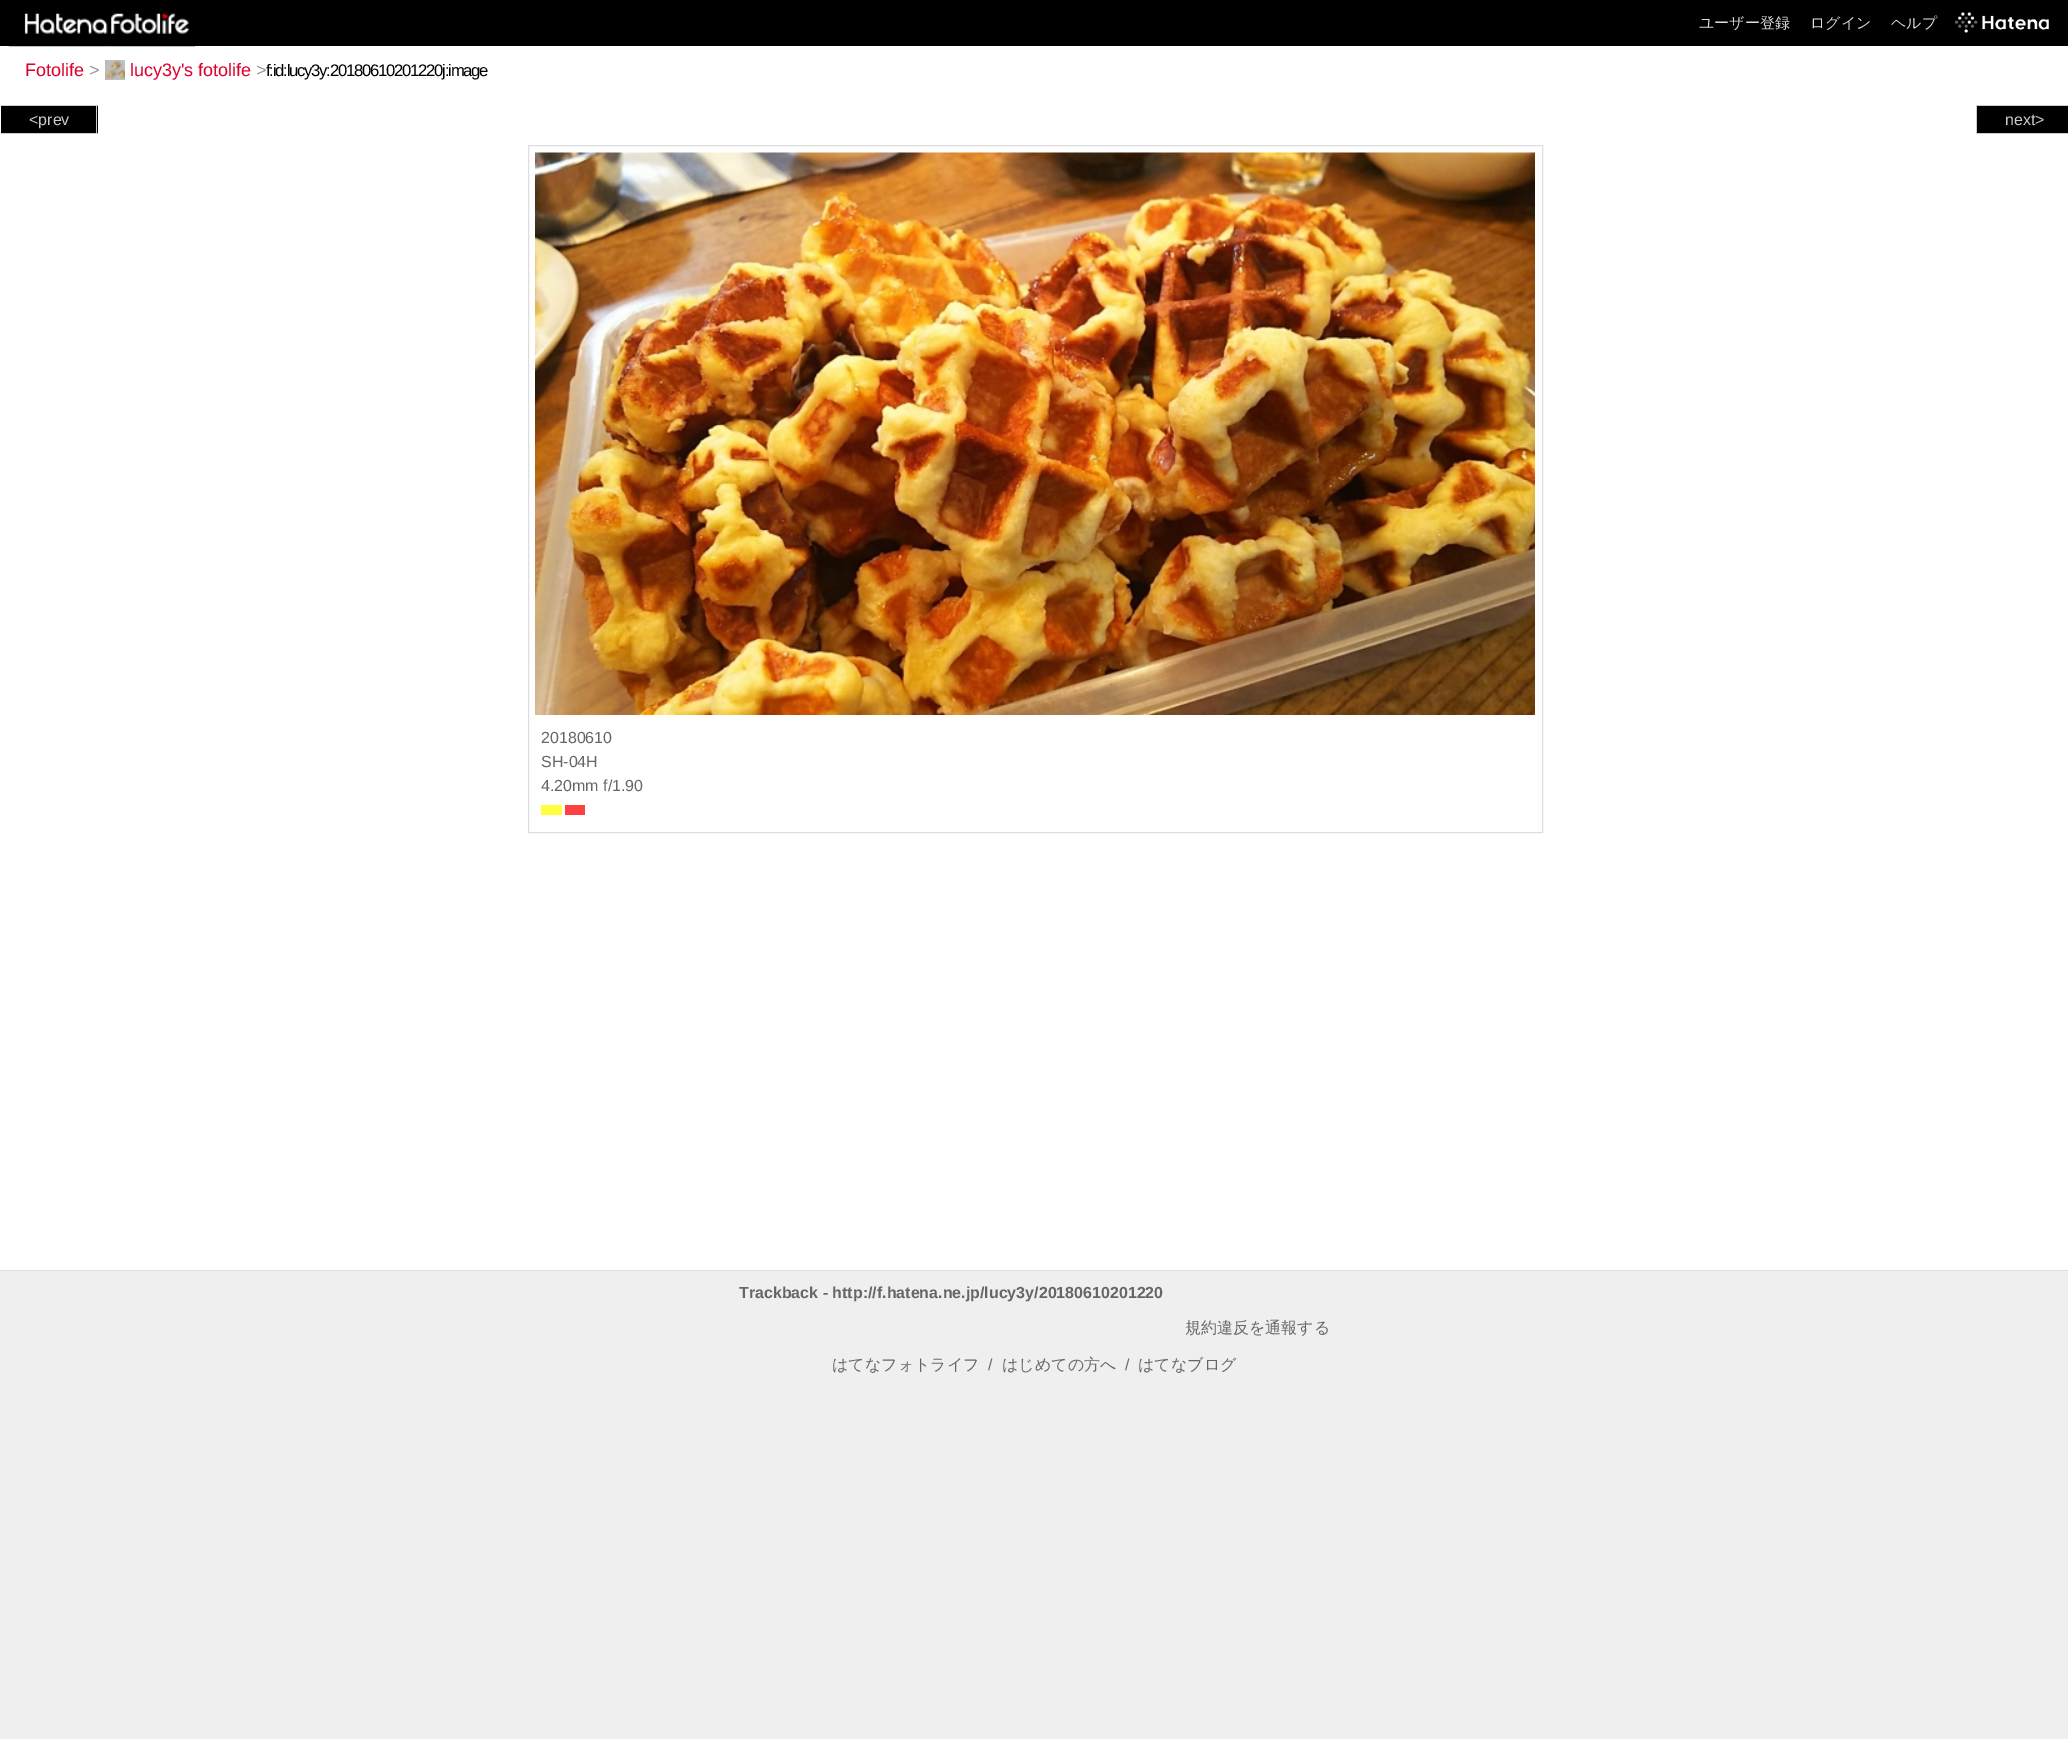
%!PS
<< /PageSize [2068 1739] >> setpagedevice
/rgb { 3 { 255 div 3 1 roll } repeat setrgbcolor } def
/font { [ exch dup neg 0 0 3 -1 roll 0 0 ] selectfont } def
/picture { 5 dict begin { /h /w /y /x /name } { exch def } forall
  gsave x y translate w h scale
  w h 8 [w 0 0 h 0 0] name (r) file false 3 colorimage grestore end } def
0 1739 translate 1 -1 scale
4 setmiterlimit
239 239 239 rgb
0 0 2068 1739 rectfill
0 0 0 rgb
0 0 2068 46 rectfill
255 255 255 rgb
0 46 2068 1224 rectfill
(img/1.rgb) 8 13 104 34 picture
(img/2.rgb) 111 13 84 34 picture
(img/3.rgb) 1955 12 94 21 picture
(img/4.rgb) 105 60 20 20 picture
[
  [0 1270 2068 1 222 222 222]
  [1 106 97 27 0 0 0]
  [1 105 97 1 204 204 204]
  [96 105 1 29 204 204 204]
  [1 133 97 1 204 204 204]
  [1977 106 91 27 0 0 0]
  [1976 105 92 1 204 204 204]
  [1976 133 92 1 204 204 204]
  [1976 105 1 29 204 204 204]
] { aload pop rgb rectfill } forall
222 222 222 rgb
528.5 145.5 1014 687 rectstroke
(img/5.rgb) 535 152 1000 563 picture
255 255 64 rgb
541 805 21 10 rectfill
255 64 64 rgb
565 805 20 10 rectfill
/WenQuanYiZenHei-Medium 15 font
221 221 221 rgb
[
  [(ユーザー登録) 1699 28]
  [(ログイン) 1810 28]
  [(ヘルプ) 1891 28]
] { aload pop moveto show } forall
/LiberationSans-Regular 18 font
222 0 47 rgb
25 76 moveto (Fotolife) show
153 153 153 rgb
89 76 moveto (>) show
222 0 47 rgb
130 76 moveto (lucy3y's fotolife) show
153 153 153 rgb
256 76 moveto (>) show
/LiberationSans-Regular 16.7 font
0 0 0 rgb
266 76 moveto -1.25 0 (f:id:lucy3y:20180610201220j:image) ashow
/LiberationSans-Regular 16 font
204 204 204 rgb
29 125 moveto (<prev) show
2005 125 moveto (next>) show
102 102 102 rgb
[
  [(20180610) 541 743]
  [(SH-04H) 541 767]
  [(4.20mm f/1.90) 541 791]
] { aload pop moveto show } forall
/LiberationSans-Bold 16 font
739 1298 moveto (Trackback - http://f.hatena.ne.jp/lucy3y/20180610201220) show
/WenQuanYiZenHei-Medium 16 font
1185 1333 moveto (規約違反を通報する) show
832 1370 moveto (はてなフォトライフ) show
/LiberationSans-Regular 16 font
988 1370 moveto (/) show
/WenQuanYiZenHei-Medium 16 font
1002 1370 moveto (はじめての方へ) show
/LiberationSans-Regular 16 font
1125 1370 moveto (/) show
/WenQuanYiZenHei-Medium 16 font
1138 1370 moveto (はてなブログ) show
showpage
